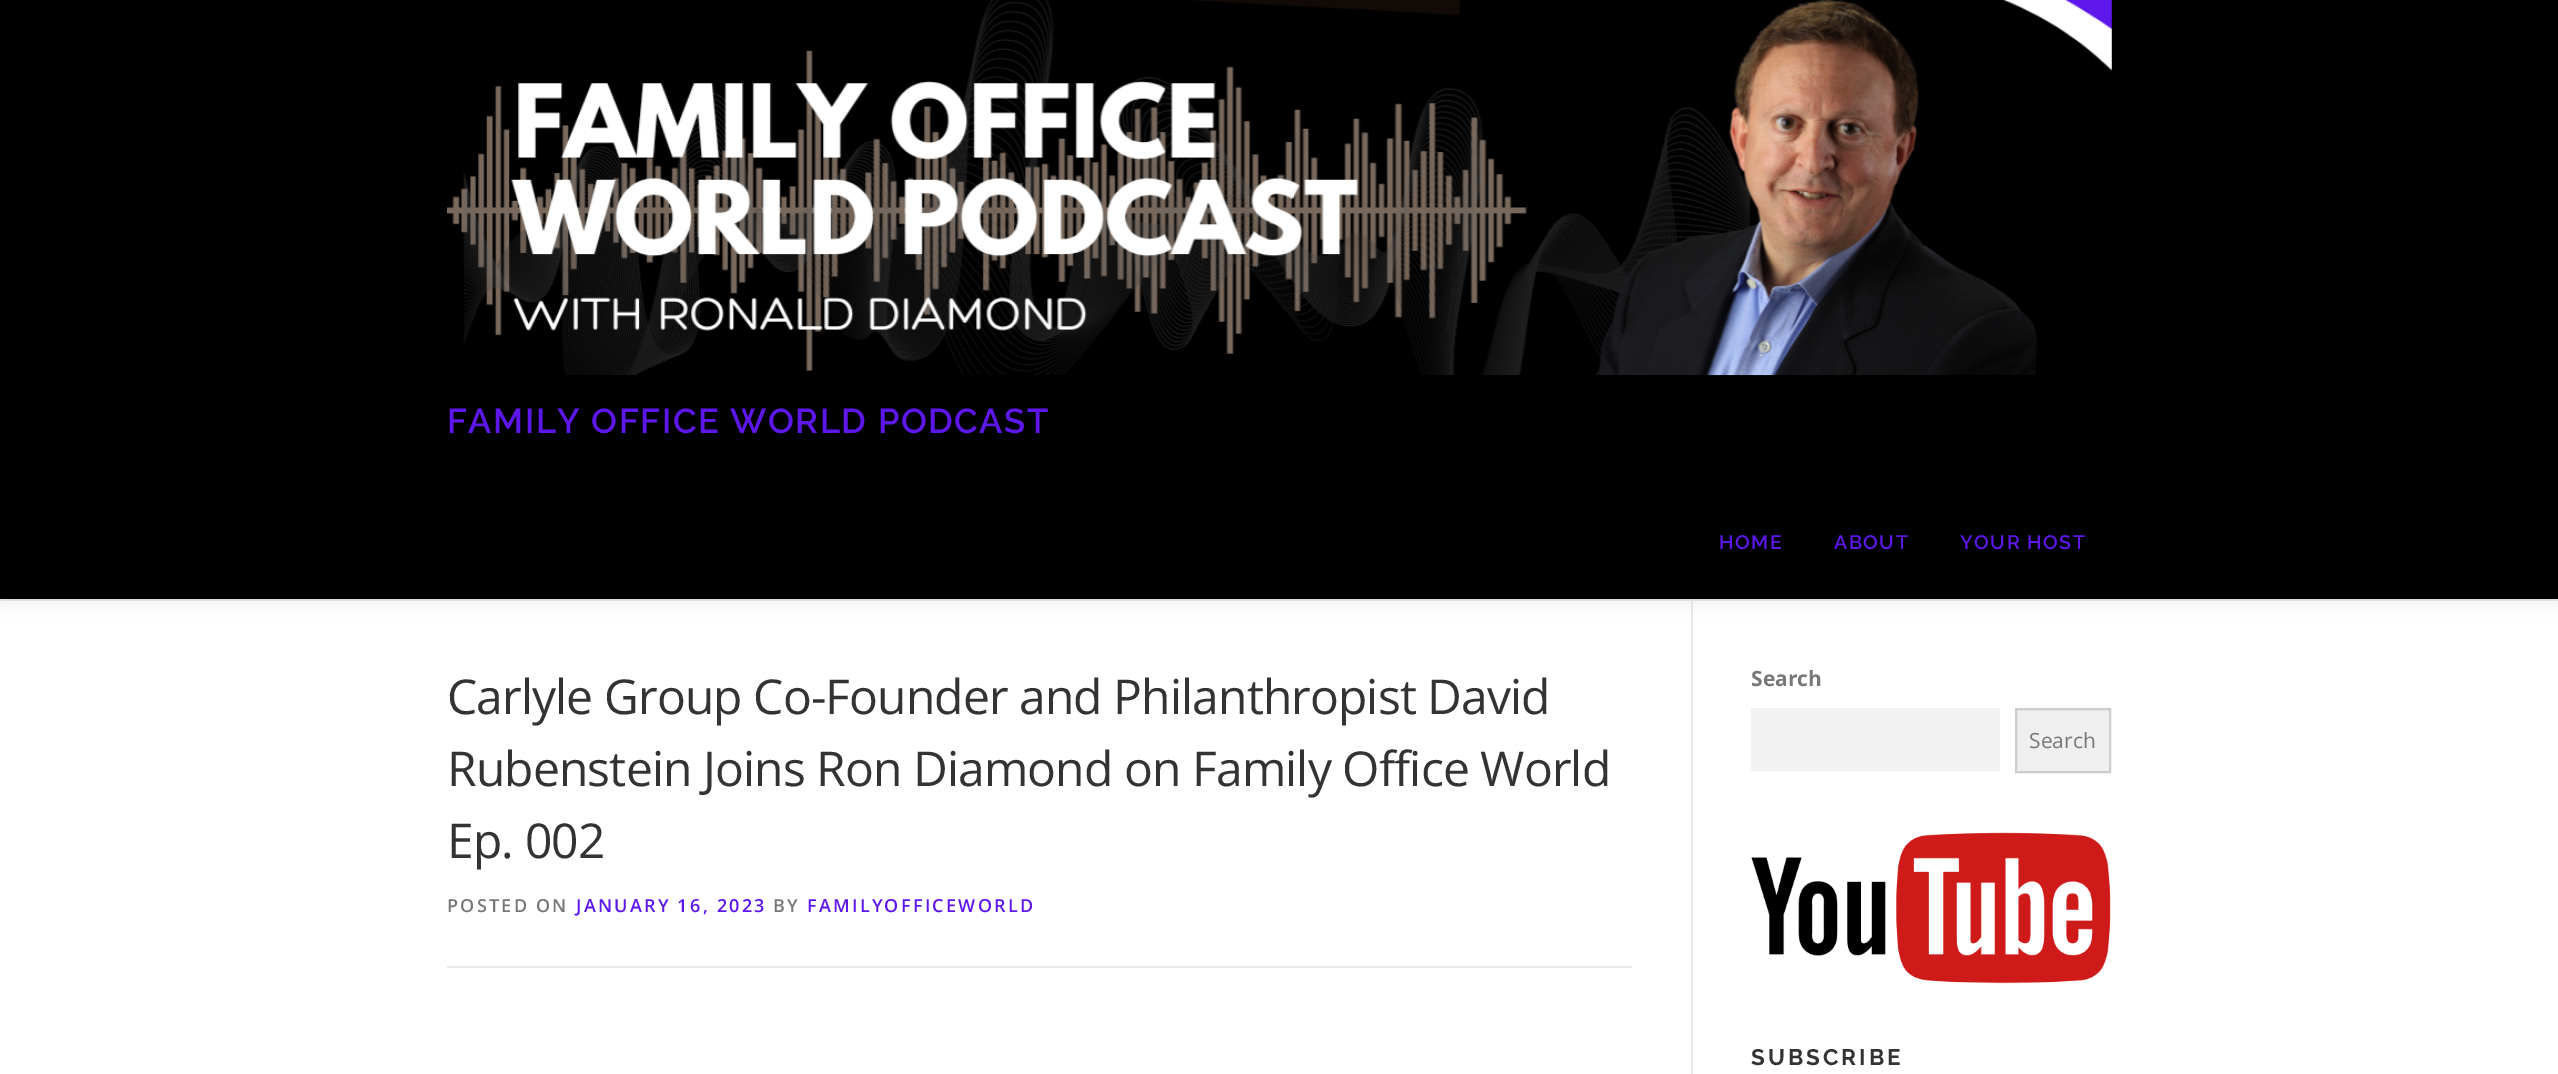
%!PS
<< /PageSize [2558 1074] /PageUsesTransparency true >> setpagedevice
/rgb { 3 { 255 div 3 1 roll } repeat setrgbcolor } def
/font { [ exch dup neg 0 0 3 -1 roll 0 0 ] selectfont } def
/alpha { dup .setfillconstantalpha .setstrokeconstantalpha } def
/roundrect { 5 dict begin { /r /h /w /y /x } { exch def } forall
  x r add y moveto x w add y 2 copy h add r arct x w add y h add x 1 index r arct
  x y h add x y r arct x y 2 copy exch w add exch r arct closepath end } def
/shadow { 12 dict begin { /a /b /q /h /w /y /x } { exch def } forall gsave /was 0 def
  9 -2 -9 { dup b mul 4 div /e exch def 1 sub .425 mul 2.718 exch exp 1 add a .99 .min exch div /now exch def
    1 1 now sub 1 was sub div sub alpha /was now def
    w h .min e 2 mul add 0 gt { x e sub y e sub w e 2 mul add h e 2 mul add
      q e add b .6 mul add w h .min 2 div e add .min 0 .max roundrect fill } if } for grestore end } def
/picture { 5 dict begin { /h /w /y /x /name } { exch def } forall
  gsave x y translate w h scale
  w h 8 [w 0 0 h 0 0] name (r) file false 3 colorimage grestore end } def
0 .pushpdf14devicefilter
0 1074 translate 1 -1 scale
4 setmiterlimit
255 255 255 rgb
0 0 2558 1074 rectfill
233 233 233 rgb
0 599 2558 2 rectfill
1691 600 2 474 rectfill
50 50 50 rgb
0 8 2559 598 0 7.5 0.06 shadow
0 0 0 rgb
0 0 2558 599 rectfill
(img/1.rgb) 447 0 1665 376 picture
233 233 233 rgb
447 966 1185 2 rectfill
242 242 242 rgb
1751 708 249 63 rectfill
239 239 239 rgb
2016 709 moveto 2110 709 lineto 2110 772 lineto 2016 772 lineto closepath gsave fill grestore
204 204 204 rgb
2 setlinewidth
stroke
(img/2.rgb) 1751 832 360 152 picture
/Raleway-SemiBold 34.5 font
94 23 235 rgb
447 433 moveto 1.5 0 (FAMILY OFFICE WORLD PODCAST) ashow
/Raleway-SemiBold 19.5 font
1719 549 moveto 1.5 0 (HOME) ashow
1834 549 moveto 1.5 0 (ABOUT) ashow
1960 549 moveto 1.5 0 (YOUR HOST) ashow
/OpenSans-Regular 48 font
51 51 51 rgb
447 714 moveto -0.9 0 (Carlyle Group Co-Founder and Philanthropist David) ashow
447 786 moveto -0.9 0 (Rubenstein Joins Ron Diamond on Family Office World) ashow
447 858 moveto -0.9 0 (Ep. 002) ashow
/OpenSans-SemiBold 18 font
119 119 119 rgb
447 912 moveto 2.25 0 (POSTED ON) ashow
94 23 235 rgb
576 912 moveto 2.25 0 (JANUARY 16, 2023) ashow
119 119 119 rgb
773 912 moveto 2.25 0 (BY) ashow
94 23 235 rgb
807 912 moveto 2.25 0 (FAMILYOFFICEWORLD) ashow
/OpenSans-Bold 21 font
119 119 119 rgb
1751 686 moveto (Search) show
/OpenSans-Regular 21 font
2029 748 moveto (Search) show
/Raleway-Bold 22.5 font
51 51 51 rgb
1751 1065 moveto 3 0 (SUBSCRIBE) ashow
.poppdf14devicefilter showpage
